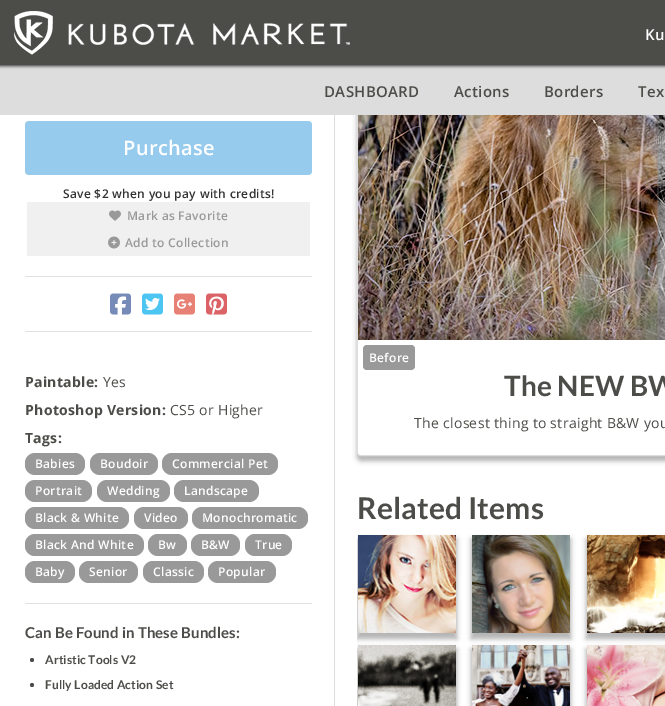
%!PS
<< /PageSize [665 706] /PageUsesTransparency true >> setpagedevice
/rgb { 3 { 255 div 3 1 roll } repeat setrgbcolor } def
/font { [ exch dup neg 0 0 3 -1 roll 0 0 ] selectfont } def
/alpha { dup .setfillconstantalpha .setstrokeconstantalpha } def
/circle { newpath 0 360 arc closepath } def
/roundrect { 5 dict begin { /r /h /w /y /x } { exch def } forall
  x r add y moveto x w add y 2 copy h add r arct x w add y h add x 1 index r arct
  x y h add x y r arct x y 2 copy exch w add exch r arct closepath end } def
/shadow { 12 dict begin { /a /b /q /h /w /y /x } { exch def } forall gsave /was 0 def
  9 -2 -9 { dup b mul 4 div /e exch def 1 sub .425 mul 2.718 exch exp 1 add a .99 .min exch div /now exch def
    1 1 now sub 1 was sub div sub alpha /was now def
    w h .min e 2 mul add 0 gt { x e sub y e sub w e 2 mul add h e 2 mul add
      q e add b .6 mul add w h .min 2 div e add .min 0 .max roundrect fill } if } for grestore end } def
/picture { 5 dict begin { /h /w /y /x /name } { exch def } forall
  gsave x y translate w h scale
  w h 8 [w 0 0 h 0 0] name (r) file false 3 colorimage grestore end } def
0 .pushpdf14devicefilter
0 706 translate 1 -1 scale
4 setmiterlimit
255 255 255 rgb
0 0 665 706 rectfill
0 0 0 rgb
357 -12 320 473 4 2.5 0.3 shadow
222 221 221 rgb
357.5 -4.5 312 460 3.5 roundrect stroke
0 65 665 50 rectfill
0 0 0 rgb
0 1 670 65 0 1.5 0.75 shadow
76 76 73 rgb
0 0 665 65 rectfill
(img/1.rgb) 14 11 336 44 picture
222 221 221 rgb
334 115 1 591 rectfill
151 203 238 rgb
25 121 287 54 4 roundrect fill
240 240 240 rgb
27 202 283 54 rectfill
(img/2.rgb) 109 210 12 11 picture
(img/3.rgb) 108 236 12 13 picture
225 225 225 rgb
25 276 287 1 rectfill
(img/4.rgb) 110 293 21 22 picture
(img/5.rgb) 142 293 21 22 picture
(img/6.rgb) 174 293 21 22 picture
(img/7.rgb) 206 293 21 22 picture
25 331 287 1 rectfill
153 153 153 rgb
25 453 60 22 10 roundrect fill
90 453 68 22 10 roundrect fill
162 453 116 22 10 roundrect fill
25 480 67 22 10 roundrect fill
97 480 73 22 10 roundrect fill
174 480 85 22 10 roundrect fill
25 507 104 22 10 roundrect fill
134 507 54 22 10 roundrect fill
192 507 116 22 10 roundrect fill
25 534 119 22 10 roundrect fill
148 534 39 22 10 roundrect fill
191 534 49 22 10 roundrect fill
245 534 47 22 10 roundrect fill
25 561 50 22 10 roundrect fill
79 561 59 22 10 roundrect fill
143 561 61 22 10 roundrect fill
208 561 68 22 10 roundrect fill
225 225 225 rgb
25 603 287 1 rectfill
76 76 73 rgb
32 660 2 circle fill
32 685 2 circle fill
(img/8.rgb) 358 115 300 225 picture
(img/10.rgb) 658 115 7 225 picture
0.25 alpha
136 136 136 rgb
657 115 2 225 rectfill
1 alpha
(img/9.rgb) 654 115 8 53 picture
255 255 255 rgb
358 340 moveto 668 340 lineto 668 452 lineto 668 453.5 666.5 455 665 455 curveto 361 455 lineto 359.5 455 358 453.5 358 452 curveto closepath fill
153 153 153 rgb
363 345 52 25 4 roundrect fill
gsave
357 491 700 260 rectclip
0 0 0 rgb
357 539 100 100 0 2.5 0.3 shadow
grestore
0 0 0 rgb
471 539 100 100 0 2.5 0.3 shadow
586 539 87 100 0 2.5 0.3 shadow
(img/11.rgb) 358 535 98 98 picture
255 255 255 rgb
461 576 1 22 rectfill
(img/12.rgb) 472 535 98 98 picture
(img/13.rgb) 587 535 78 98 picture
gsave
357 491 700 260 rectclip
0 0 0 rgb
357 649 100 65 0 2.5 0.3 shadow
grestore
0 0 0 rgb
471 649 100 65 0 2.5 0.3 shadow
586 649 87 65 0 2.5 0.3 shadow
(img/14.rgb) 358 645 98 61 picture
255 255 255 rgb
461 686 1 20 rectfill
(img/15.rgb) 472 645 98 61 picture
(img/16.rgb) 587 645 78 61 picture
/OpenSans-SemiBold 15 font
645 40 moveto 0.3 0 (Ku) ashow
76 76 73 rgb
324 97 moveto 0.3 0 (DASHBOARD) ashow
454 97 moveto 0.3 0 (Actions) ashow
544 97 moveto 0.3 0 (Borders) ashow
638 97 moveto 0.3 0 (Tex) ashow
/OpenSans-SemiBold 20 font
255 255 255 rgb
123 155 moveto 0.3 0 (Purchase) ashow
/OpenSans-SemiBold 12 font
51 51 51 rgb
63 198 moveto 0.3 0 (Save $2 when you pay with credits!) ashow
153 153 153 rgb
127 220 moveto 0.3 0 (Mark as Favorite) ashow
125 247 moveto 0.3 0 (Add to Collection) ashow
/OpenSans-Bold 14 font
76 76 73 rgb
25 387 moveto 0.3 0 (Paintable:) ashow
/OpenSans-Regular 14 font
103 387 moveto 0.3 0 (Yes) ashow
/OpenSans-Bold 14 font
25 415 moveto 0.3 0 (Photoshop Version:) ashow
/OpenSans-Regular 14 font
170 415 moveto 0.3 0 (CS5 or Higher) ashow
/OpenSans-Bold 14 font
25 443 moveto 0.3 0 (Tags:) ashow
/OpenSans-SemiBold 12 font
255 255 255 rgb
35 468 moveto 0.3 0 (Babies) ashow
100 468 moveto 0.3 0 (Boudoir) ashow
172 468 moveto 0.3 0 (Commercial Pet) ashow
35 495 moveto 0.3 0 (Portrait) ashow
107 495 moveto 0.3 0 (Wedding) ashow
184 495 moveto 0.3 0 (Landscape) ashow
35 522 moveto 0.3 0 (Black & White) ashow
144 522 moveto 0.3 0 (Video) ashow
202 522 moveto 0.3 0 (Monochromatic) ashow
35 549 moveto 0.3 0 (Black And White) ashow
158 549 moveto 0.3 0 (Bw) ashow
201 549 moveto 0.3 0 (B&W) ashow
255 549 moveto 0.3 0 (True) ashow
35 576 moveto 0.3 0 (Baby) ashow
89 576 moveto 0.3 0 (Senior) ashow
153 576 moveto 0.3 0 (Classic) ashow
218 576 moveto 0.3 0 (Popular) ashow
/Lato-Bold 15 font
76 76 73 rgb
25 638 moveto 0.1 0 (Can Be Found in These Bundles:) ashow
/Lato-Bold 12 font
45 664 moveto 0.1 0 (Artistic Tools V2) ashow
45 689 moveto 0.1 0 (Fully Loaded Action Set) ashow
/OpenSans-SemiBold 12 font
255 255 255 rgb
369 362 moveto 0.3 0 (Before) ashow
/Lato-Bold 28 font
76 76 73 rgb
504 396 moveto 0.1 0 (The NEW BW) ashow
/OpenSans-Regular 14 font
414 428 moveto 0.3 0 (The closest thing to straight B&W you) ashow
/Lato-Bold 30 font
357 519 moveto 0.1 0 (Related Items) ashow
.poppdf14devicefilter showpage
